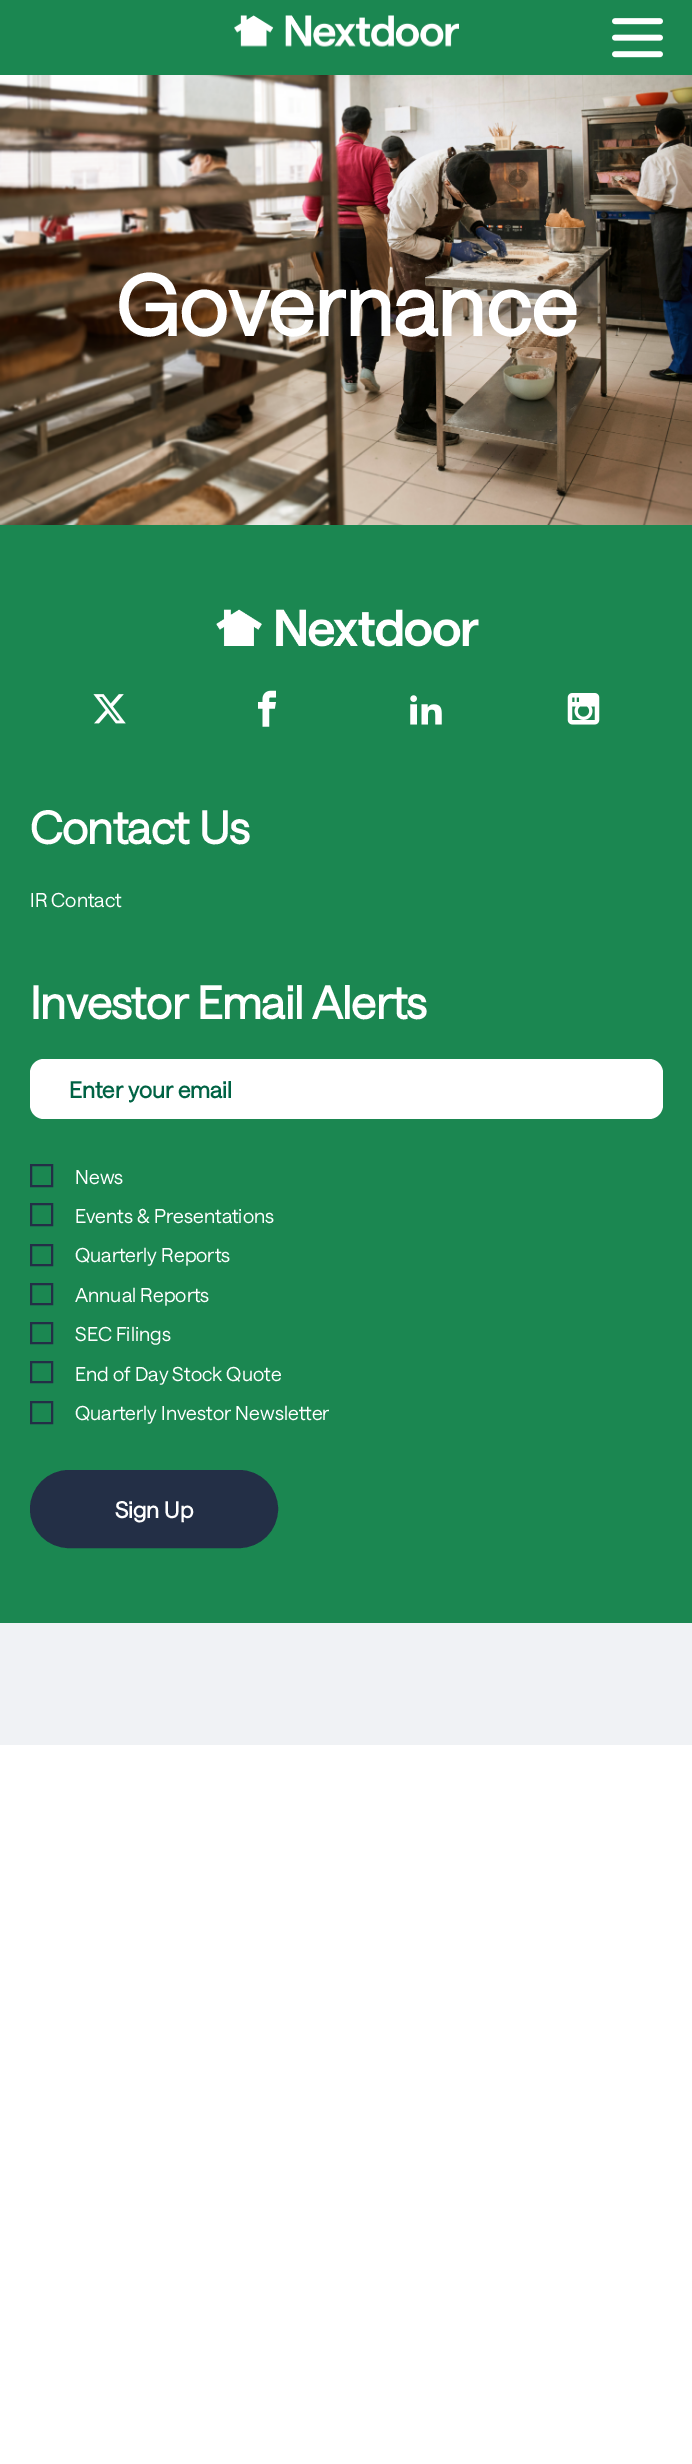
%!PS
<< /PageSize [692 2464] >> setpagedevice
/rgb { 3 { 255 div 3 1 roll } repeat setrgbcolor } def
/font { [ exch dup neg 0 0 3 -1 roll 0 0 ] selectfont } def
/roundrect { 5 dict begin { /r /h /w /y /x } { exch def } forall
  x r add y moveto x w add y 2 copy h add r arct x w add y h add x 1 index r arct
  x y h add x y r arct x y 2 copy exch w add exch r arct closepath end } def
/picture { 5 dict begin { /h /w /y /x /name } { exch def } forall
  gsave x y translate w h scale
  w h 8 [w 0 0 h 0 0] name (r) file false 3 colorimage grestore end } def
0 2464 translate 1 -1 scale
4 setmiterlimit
255 255 255 rgb
0 0 692 2464 rectfill
27 135 81 rgb
0 0 692 75 rectfill
(img/1.rgb) 234 15 225 32 picture
(img/2.rgb) 612 18 51 40 picture
(img/3.rgb) 0 75 692 450 picture
0 525 692 1098 rectfill
(img/4.rgb) 216 609 263 38 picture
(img/5.rgb) 93 694 33 30 picture
(img/6.rgb) 258 690 18 37 picture
(img/7.rgb) 410 695 32 30 picture
(img/8.rgb) 567 693 33 32 picture
255 255 255 rgb
30 1059 633 60 14 roundrect fill
35 47 70 rgb
2 setlinewidth
31 1165 21 21 rectstroke
31 1204 21 21 rectstroke
31 1245 21 20 rectstroke
31 1284 21 20 rectstroke
31 1323 21 20 rectstroke
31 1362 21 20 rectstroke
31 1402 21 21 rectstroke
31.5 1471.5 245 75 37.5 roundrect gsave fill grestore
3 setlinewidth
stroke
240 242 245 rgb
0 1623 692 122 rectfill
/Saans-Bold 84 font
255 255 255 rgb
116 336 moveto (Governance) show
/Saans-Bold 45 font
30 844 moveto -0.45 0 (Contact Us) ashow
/Saans-Regular 19.5 font
30 907 moveto (IR Contact) show
/Saans-Bold 45 font
30 1019 moveto -0.45 0 (Investor Email Alerts) ashow
/Saans-Bold 22.5 font
0 99 68 rgb
69 1098 moveto (Enter your email) show
/Saans-Regular 19.5 font
255 255 255 rgb
[
  [(News) 75 1184]
  [(Events & Presentations) 75 1223]
  [(Quarterly Reports) 75 1262]
  [(Annual Reports) 75 1302]
  [(SEC Filings) 75 1341]
  [(End of Day Stock Quote) 75 1381]
  [(Quarterly Investor Newsletter) 75 1420]
] { aload pop moveto show } forall
/Saans-Bold 22.5 font
115 1518 moveto (Sign Up) show
showpage
